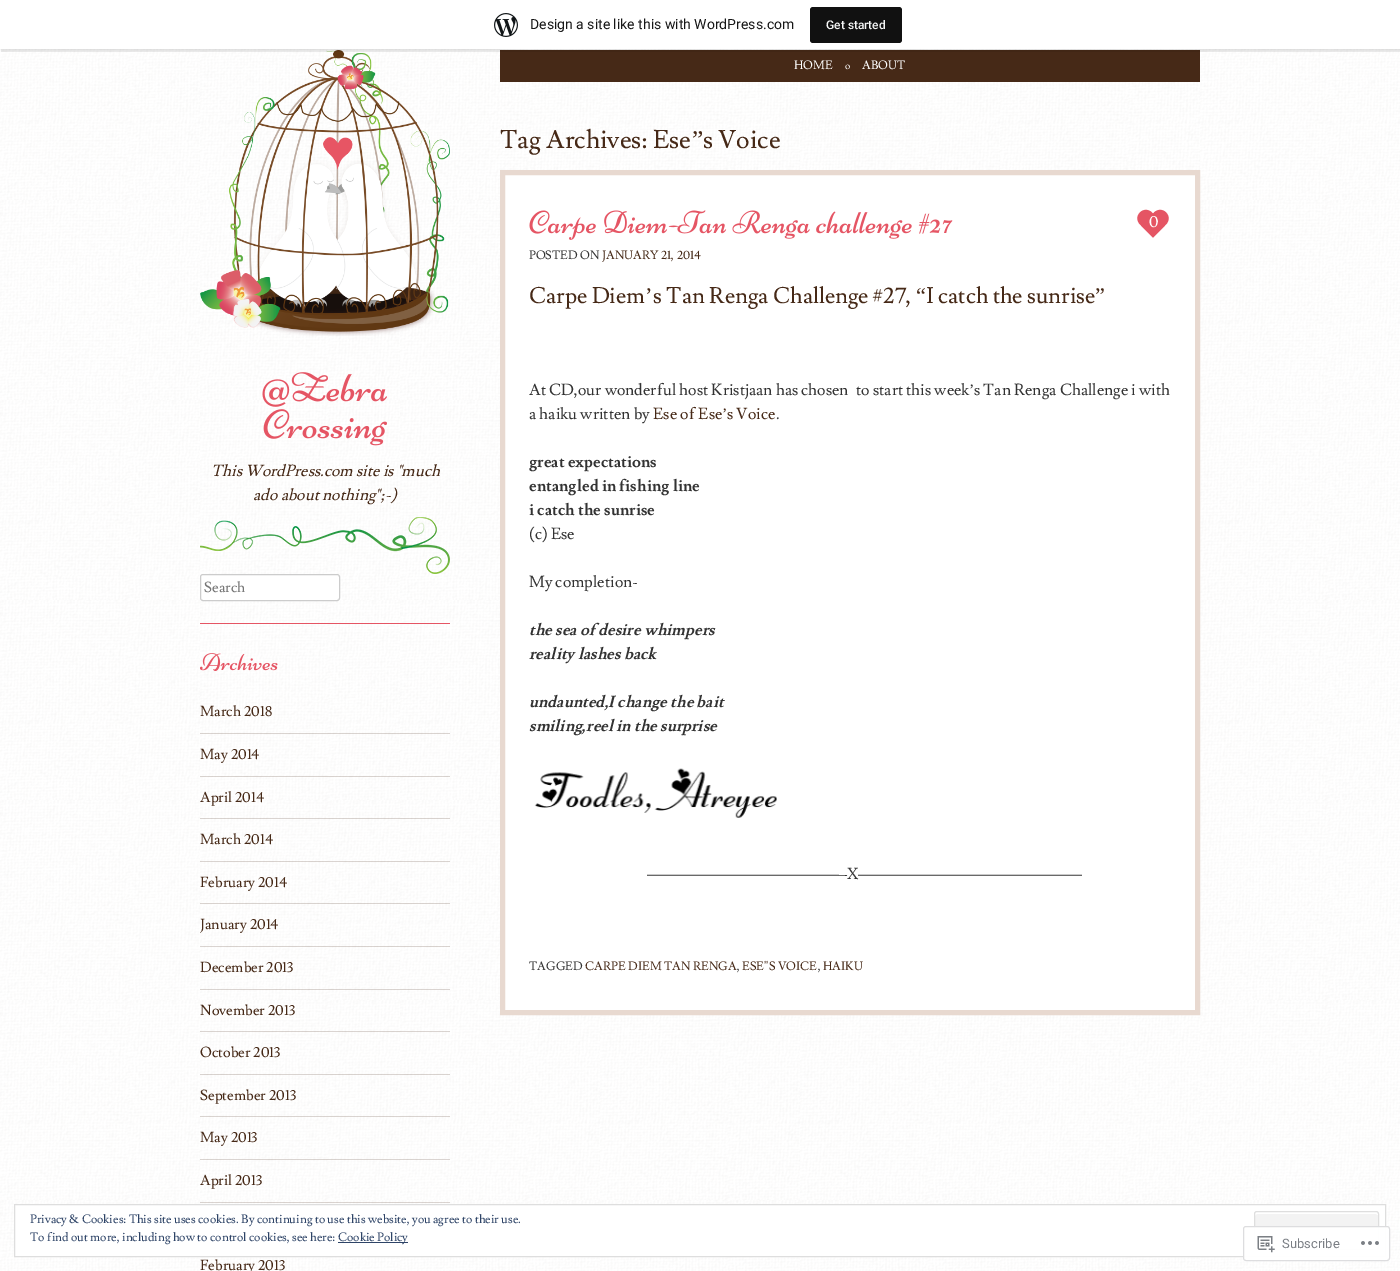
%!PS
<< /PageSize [1400 1271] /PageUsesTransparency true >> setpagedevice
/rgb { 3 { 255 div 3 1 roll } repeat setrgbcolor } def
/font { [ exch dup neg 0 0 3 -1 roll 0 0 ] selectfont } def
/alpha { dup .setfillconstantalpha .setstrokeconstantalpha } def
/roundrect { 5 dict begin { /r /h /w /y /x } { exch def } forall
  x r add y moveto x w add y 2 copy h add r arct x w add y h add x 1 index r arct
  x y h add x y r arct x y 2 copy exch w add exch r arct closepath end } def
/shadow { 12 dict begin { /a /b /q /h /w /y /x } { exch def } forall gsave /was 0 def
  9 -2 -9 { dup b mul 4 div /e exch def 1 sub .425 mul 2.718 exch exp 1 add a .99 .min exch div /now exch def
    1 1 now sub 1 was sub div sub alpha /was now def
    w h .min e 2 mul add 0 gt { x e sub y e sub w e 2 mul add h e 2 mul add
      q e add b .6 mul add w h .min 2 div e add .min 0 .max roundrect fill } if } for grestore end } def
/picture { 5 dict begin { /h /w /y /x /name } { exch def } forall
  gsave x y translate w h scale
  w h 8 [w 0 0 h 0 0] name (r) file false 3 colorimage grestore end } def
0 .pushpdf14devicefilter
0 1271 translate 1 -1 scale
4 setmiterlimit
255 255 255 rgb
0 0 1400 1271 rectfill
(img/1.rgb) 0 49 1400 1222 picture
70 41 23 rgb
500 50 700 32 rectfill
(img/3.rgb) 200 50 250 286 picture
0 0 0 rgb
0 1 1400 49 0 1 0.05 shadow
0.08 alpha
1 49 moveto 1 52 lineto 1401 52 lineto 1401 3 lineto 1400 3 lineto 1400 49 lineto closepath fill
1 alpha
255 255 255 rgb
0 0 1400 49 rectfill
(img/2.rgb) 494 13 24 24 picture
17 17 17 rgb
810 7 92 36 3 roundrect fill
(img/4.rgb) 262 372 125 35 picture
(img/5.rgb) 263 409 124 37 picture
(img/6.rgb) 200 517 250 57 picture
229 85 100 rgb
200 623 250 1 rectfill
255 255 255 rgb
200.5 574.5 139 26 2.5 roundrect gsave fill grestore
204 204 204 rgb
stroke
(img/7.rgb) 200 653 78 18 picture
0.2 alpha
[
  [200 733 250 1 70 41 23]
  [200 776 250 1 70 41 23]
  [200 818 250 1 70 41 23]
  [200 861 250 1 70 41 23]
  [200 903 250 1 70 41 23]
  [200 946 250 1 70 41 23]
  [200 989 250 1 70 41 23]
  [200 1031 250 1 70 41 23]
  [200 1074 250 1 70 41 23]
  [200 1116 250 1 70 41 23]
  [200 1159 250 1 70 41 23]
  [200 1202 250 1 70 41 23]
] { aload pop rgb rectfill } forall
1 alpha
255 255 255 rgb
502.5 172.5 moveto 1197.5 172.5 lineto 1197.5 1012.5 lineto 502.5 1012.5 lineto closepath gsave fill grestore
232 217 208 rgb
5 setlinewidth
stroke
(img/8.rgb) 529 210 424 30 picture
229 85 100 rgb
1140 212.5 moveto 1143 209 1148.5 209 1152 212.5 curveto 1165 225.5 lineto 1153 237.5 lineto 1140 224.5 lineto 1136.5 221 1136.5 215.5 1140 212.5 curveto closepath fill
1166 212.5 moveto 1169.5 215.5 1169.5 221 1166 224.5 curveto 1153 237.5 lineto 1141 225.5 lineto 1154 212.5 lineto 1157.5 209 1163 209 1166 212.5 curveto closepath fill
(img/9.rgb) 534 768 243 50 picture
255 255 255 rgb
14.5 1204.5 moveto 1385.5 1204.5 lineto 1385.5 1256.5 lineto 14.5 1256.5 lineto closepath gsave fill grestore
222 222 222 rgb
1 setlinewidth
stroke
243 243 243 rgb
1254 1211 125 39 3 roundrect fill
255 255 255 rgb
1257 1214 moveto 1376 1214 lineto 1378 1215 lineto 1378 1216 lineto 1378 1214 lineto 1378 1213 1377 1212 1376 1212 curveto 1257 1212 lineto 1256 1212 1255 1213 1255 1214 curveto 1255 1216 lineto 1255 1215 1256 1214 1257 1214 curveto closepath fill
222 222 222 rgb
1254.5 1211.5 124 38 2.5 roundrect stroke
46 68 103 rgb
338 1242 70 1 rectfill
0.98 alpha
255 255 255 rgb
1243 1226 147 35 3 roundrect fill
220 220 222 rgb
1243.5 1226.5 146 34 2.5 roundrect stroke
1 alpha
(img/10.rgb) 1257 1236 18 17 picture
(img/11.rgb) 1361 1241 18 4 picture
/Roboto-Regular 14 font
23 23 23 rgb
530 29 moveto (Design a site like this with WordPress.com) show
/Roboto-Medium 12 font
246 247 247 rgb
826 29 moveto (Get started) show
/Lusitana-Regular 12 font
255 255 255 rgb
794 69 moveto (HOME) show
/Lusitana-Regular 10 font
845 69 moveto (o) show
/Lusitana-Regular 12 font
862 69 moveto (ABOUT) show
/Lusitana-Italic 16 font
70 41 23 rgb
211 476 moveto (This WordPress.com site is "much) show
253 500 moveto (ado about nothing";-\)) show
/Lusitana-Regular 14.5 font
117 117 117 rgb
204 592 moveto (Search) show
70 41 23 rgb
[
  [(March 2018) 200 716]
  [(May 2014) 200 759]
  [(April 2014) 200 802]
  [(March 2014) 200 844]
  [(February 2014) 200 887]
  [(January 2014) 200 929]
  [(December 2013) 200 972]
  [(November 2013) 200 1015]
  [(October 2013) 200 1057]
  [(September 2013) 200 1100]
  [(May 2013) 200 1142]
  [(April 2013) 200 1185]
  [(February 2013) 200 1270]
] { aload pop moveto show } forall
/Lusitana-Regular 25.5 font
500 148 moveto (Tag Archives: Ese) show
/LiberationSerif-Regular 25.5 font
692 148 moveto (”) show
/Lusitana-Regular 25.5 font
703 148 moveto (s Voice) show
/Lusitana-Regular 16 font
255 255 255 rgb
1149 227 moveto (0) show
/Lusitana-Regular 12 font
51 51 51 rgb
529 259 moveto (POSTED ON) show
70 41 23 rgb
602 259 moveto (JANUARY 21, 2014) show
/Lusitana-Regular 22.4 font
529 303 moveto (Carpe Diem) show
/LiberationSerif-Regular 22.4 font
645 303 moveto (’) show
/Lusitana-Regular 22.4 font
653 303 moveto (s Tan Renga Challenge #27,) show
/LiberationSerif-Regular 22.4 font
916 303 moveto (“) show
/Lusitana-Regular 22.4 font
926 303 moveto (I catch the sunrise) show
/LiberationSerif-Regular 22.4 font
1095 303 moveto (”) show
/Lusitana-Regular 16 font
51 51 51 rgb
529 395 moveto (At CD,our wonderful host Kristjaan has chosen) show
856 395 moveto (to start this week) show
/LiberationSerif-Regular 16 font
969 395 moveto (’) show
/Lusitana-Regular 16 font
974 395 moveto (s Tan Renga Challenge i with) show
529 419 moveto (a haiku written by) show
70 41 23 rgb
653 419 moveto (Ese of Ese) show
/LiberationSerif-Regular 16 font
722 419 moveto (’) show
/Lusitana-Regular 16 font
727 419 moveto (s Voice) show
51 51 51 rgb
776 419 moveto (.) show
/Lusitana-Bold 16 font
[
  [(great expectations) 529 467]
  [(entangled in fishing line) 529 491]
  [(i catch the sunrise) 529 515]
] { aload pop moveto show } forall
/Lusitana-Regular 16 font
529 539 moveto (\(c\) Ese) show
529 587 moveto (My completion-) show
/Lusitana-BoldItalic 16 font
[
  [(the sea of desire whimpers) 529 635]
  [(reality lashes back) 529 659]
  [(undaunted,I change the bait) 529 707]
  [(smiling,reel in the surprise) 529 731]
] { aload pop moveto show } forall
/LiberationSerif-Regular 16 font
647 879 moveto (————————————) show
/Lusitana-Regular 16 font
839 879 moveto (–X) show
/LiberationSerif-Regular 16 font
858 879 moveto (——————————————) show
/Lusitana-Regular 12 font
529 970 moveto (TAGGED) show
70 41 23 rgb
585 970 moveto (CARPE DIEM TAN RENGA) show
51 51 51 rgb
737 970 moveto (,) show
70 41 23 rgb
742 970 moveto (ESE''S VOICE) show
51 51 51 rgb
818 970 moveto (,) show
70 41 23 rgb
823 970 moveto (HAIKU) show
46 68 103 rgb
[
  [(Privacy & Cookies: This site uses cookies. By continuing to use this website, you agree to their use.) 30 1223]
  [(To find out more, including how to control cookies, see here:) 30 1241]
  [(Cookie Policy) 338 1241]
] { aload pop moveto show } forall
/Roboto-Regular 13 font
122 126 132 rgb
1282 1248 moveto (Subscribe) show
.poppdf14devicefilter showpage
